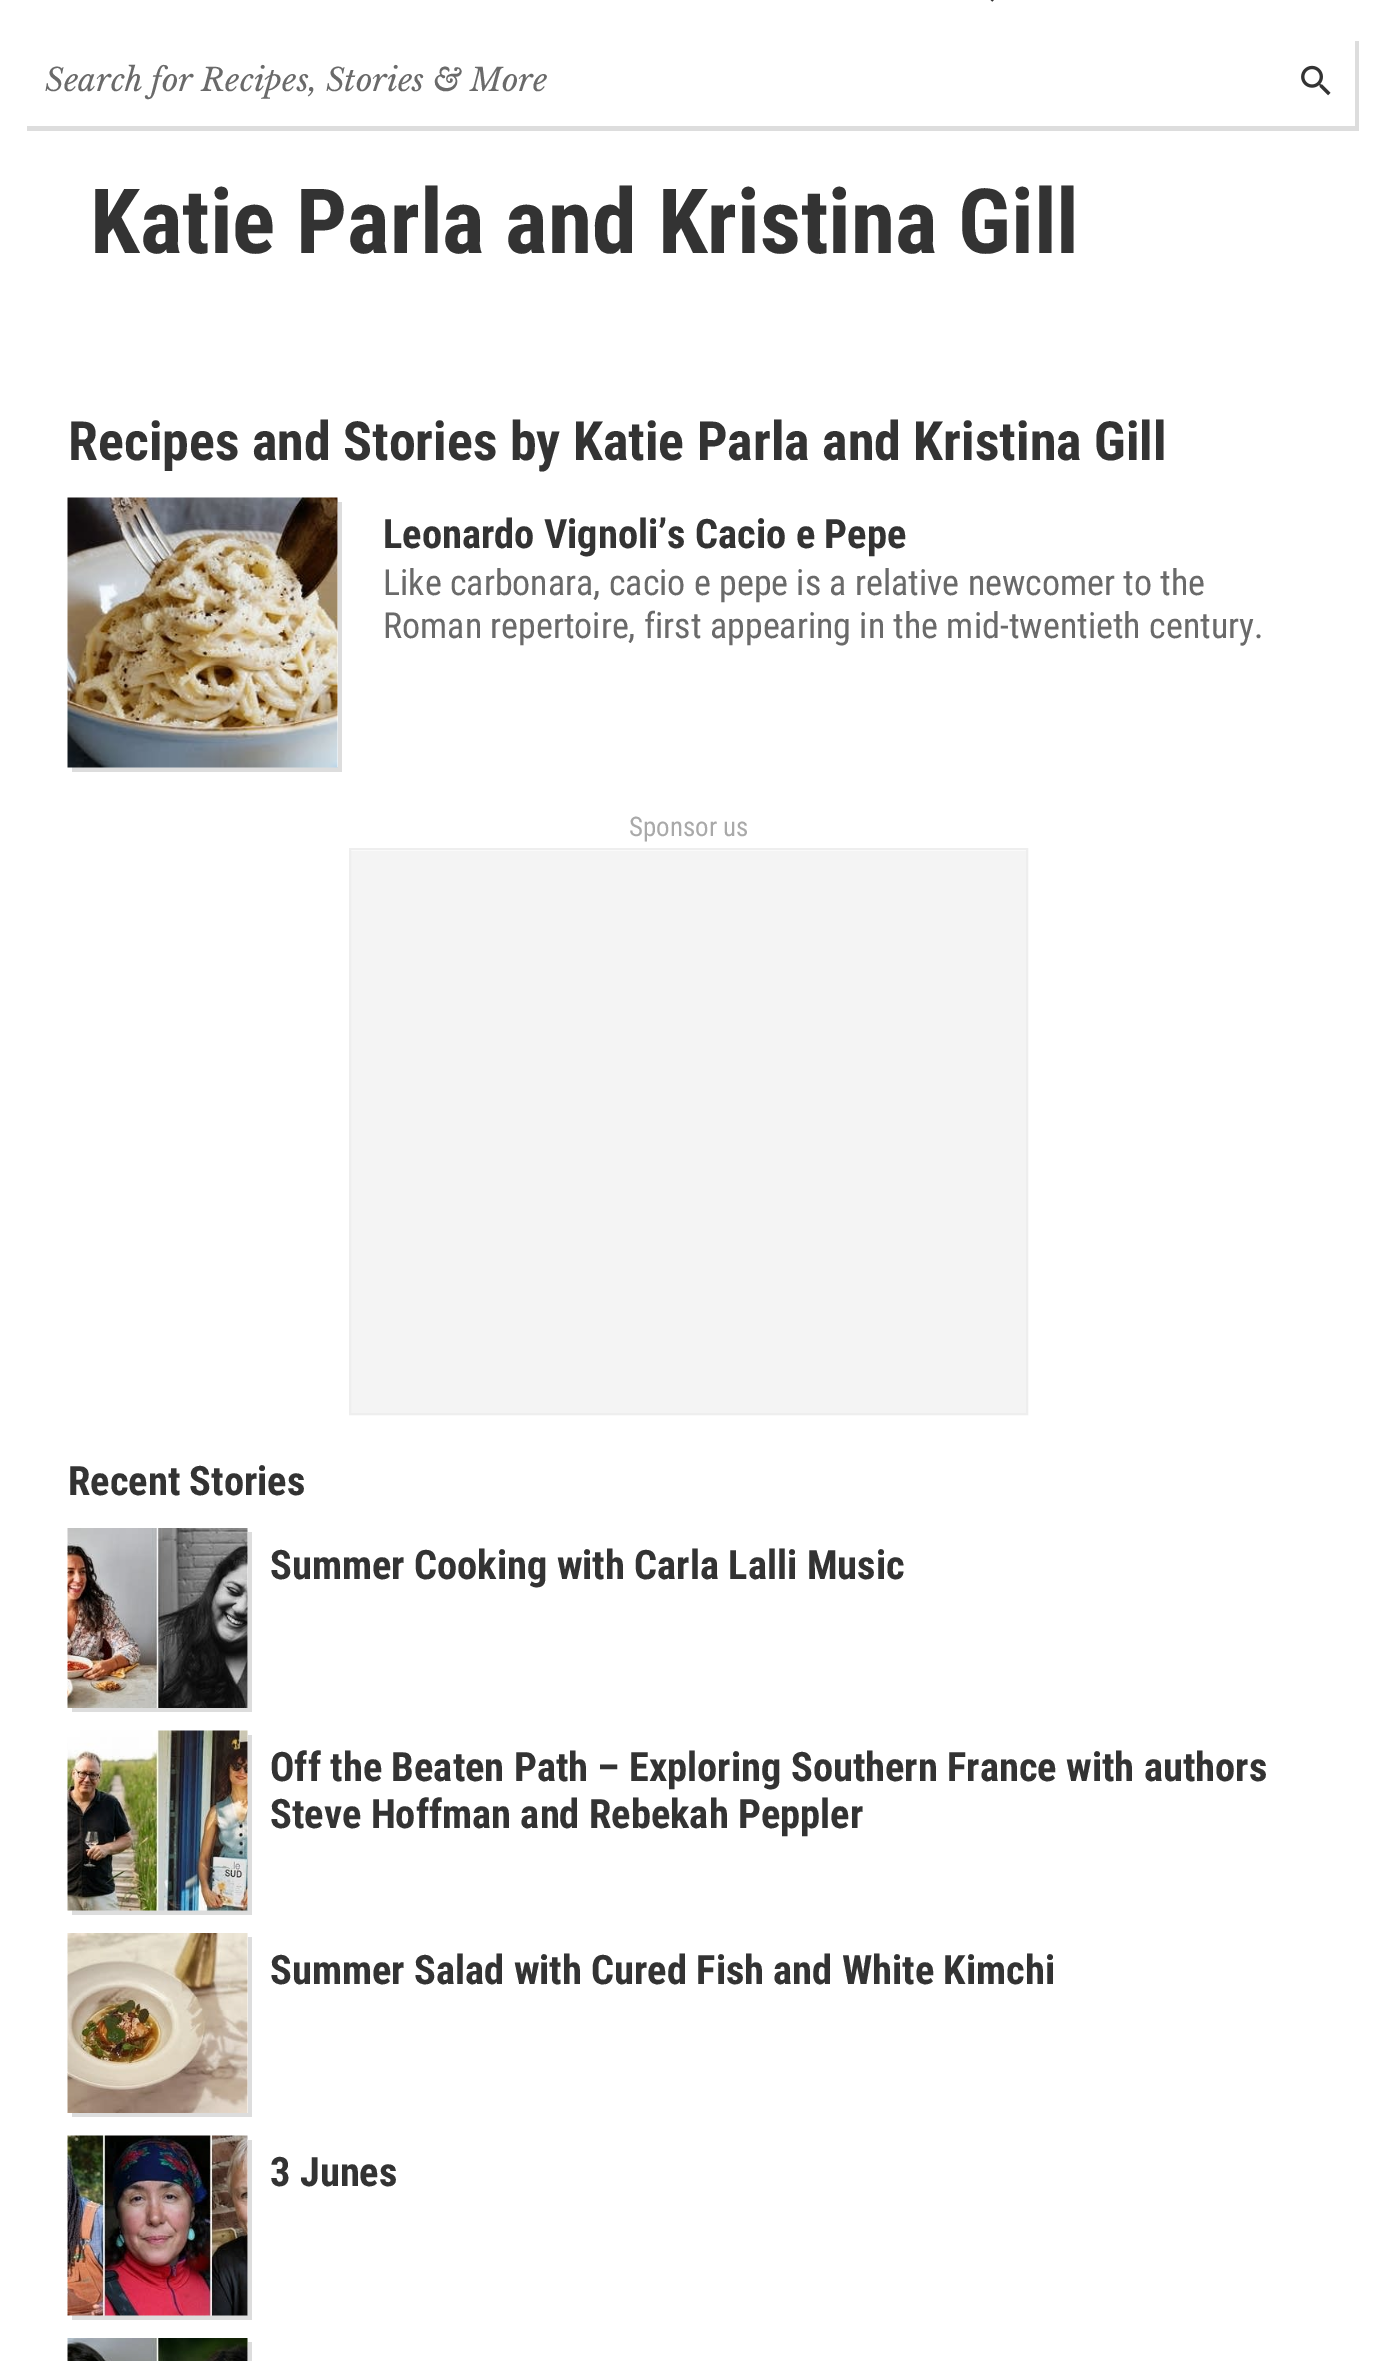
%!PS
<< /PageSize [1376 2361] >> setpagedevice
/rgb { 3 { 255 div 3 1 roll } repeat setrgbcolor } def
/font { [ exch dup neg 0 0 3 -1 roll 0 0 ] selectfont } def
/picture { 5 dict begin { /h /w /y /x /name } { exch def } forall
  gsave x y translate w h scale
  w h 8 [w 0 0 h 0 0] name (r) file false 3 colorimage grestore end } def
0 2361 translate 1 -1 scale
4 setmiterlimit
255 255 255 rgb
0 0 1376 2361 rectfill
(img/1.rgb) 990 0 4 2 picture
221 221 221 rgb
27 126 moveto 27 131 lineto 1359 131 lineto 1359 41 lineto 1354 41 lineto 1354 126 lineto closepath fill
255 255 255 rgb
1354 41 1 85 rectfill
(img/2.rgb) 1301 65 30 31 picture
221 221 221 rgb
72 767 moveto 72 772 lineto 342 772 lineto 342 502 lineto 338 502 lineto 338 767 lineto closepath fill
(img/3.rgb) 67 497 271 271 picture
244 244 244 rgb
351 851 675 562 rectfill
238 238 238 rgb
2 setlinewidth
350 849 677 565 rectstroke
221 221 221 rgb
72 1708 moveto 72 1712 lineto 252 1712 lineto 252 1532 lineto 248 1532 lineto 248 1708 lineto closepath fill
(img/4.rgb) 67 1528 181 180 picture
72 1910 moveto 72 1915 lineto 252 1915 lineto 252 1735 lineto 248 1735 lineto 248 1910 lineto closepath fill
(img/5.rgb) 67 1730 181 181 picture
72 2113 moveto 72 2117 lineto 252 2117 lineto 252 1937 lineto 248 1937 lineto 248 2113 lineto closepath fill
(img/6.rgb) 67 1933 181 180 picture
72 2315 moveto 72 2320 lineto 252 2320 lineto 252 2140 lineto 248 2140 lineto 248 2315 lineto closepath fill
(img/7.rgb) 67 2135 181 181 picture
72 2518 moveto 72 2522 lineto 252 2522 lineto 252 2342 lineto 248 2342 lineto 248 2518 lineto closepath fill
(img/8.rgb) 67 2338 181 23 picture
/LibreBaskerville-Italic 31.5 font
106 106 106 rgb
45 91 moveto (Search for Recipes, Stories & More) show
/RobotoCondensed-Bold 90 font
51 51 51 rgb
90 253 moveto (Katie Parla and Kristina Gill) show
/RobotoCondensed-Bold 54 font
68 460 moveto (Recipes and Stories by Katie Parla and Kristina Gill) show
/RobotoCondensed-Bold 40.5 font
383 548 moveto (Leonardo Vignoli’s Cacio e Pepe) show
/RobotoCondensed-Regular 36 font
106 106 106 rgb
383 595 moveto (Like carbonara, cacio e pepe is a relative newcomer to the) show
383 638 moveto (Roman repertoire, first appearing in the mid-twentieth century.) show
/RobotoCondensed-Regular 27 font
169 169 169 rgb
629 836 moveto (Sponsor us) show
/RobotoCondensed-Bold 40.5 font
51 51 51 rgb
[
  [(Recent Stories) 68 1495]
  [(Summer Cooking with Carla Lalli Music) 270 1579]
  [(Off the Beaten Path – Exploring Southern France with authors) 270 1781]
  [(Steve Hoffman and Rebekah Peppler) 270 1828]
  [(Summer Salad with Cured Fish and White Kimchi) 270 1984]
  [(3 Junes) 270 2186]
] { aload pop moveto show } forall
showpage
